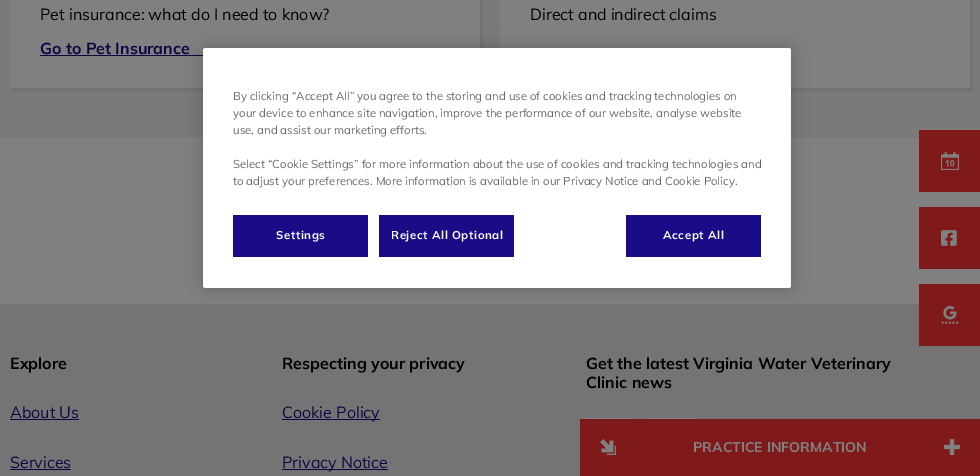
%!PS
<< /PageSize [980 476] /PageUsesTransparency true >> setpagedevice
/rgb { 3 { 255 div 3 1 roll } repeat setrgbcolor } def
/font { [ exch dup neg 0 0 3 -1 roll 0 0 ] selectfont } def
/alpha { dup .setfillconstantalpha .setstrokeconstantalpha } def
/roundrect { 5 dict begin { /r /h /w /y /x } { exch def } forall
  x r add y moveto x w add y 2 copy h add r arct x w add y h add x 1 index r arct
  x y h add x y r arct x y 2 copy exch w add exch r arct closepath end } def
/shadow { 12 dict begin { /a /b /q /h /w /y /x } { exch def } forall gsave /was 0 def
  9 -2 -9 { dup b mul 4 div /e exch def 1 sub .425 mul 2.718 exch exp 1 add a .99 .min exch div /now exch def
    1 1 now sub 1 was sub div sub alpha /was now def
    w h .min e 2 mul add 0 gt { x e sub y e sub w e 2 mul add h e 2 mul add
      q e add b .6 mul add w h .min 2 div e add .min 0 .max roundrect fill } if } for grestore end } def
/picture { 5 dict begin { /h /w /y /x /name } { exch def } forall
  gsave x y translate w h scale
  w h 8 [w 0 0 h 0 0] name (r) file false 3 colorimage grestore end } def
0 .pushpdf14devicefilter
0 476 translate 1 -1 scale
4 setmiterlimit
128 128 128 rgb
0 0 980 476 rectfill
123 122 122 rgb
0 0 980 138 rectfill
97 97 97 rgb
13 -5 470 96 0 1.5 0.4 shadow
128 128 128 rgb
10 0 470 88 rectfill
13 6 67 rgb
40 55 163 1 rectfill
97 97 97 rgb
503 -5 470 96 0 1.5 0.4 shadow
[
  [500 0 470 88 128 128 128]
  [921 132 59 58 128 26 26]
  [919 130 61 2 128 26 26]
  [919 190 61 2 128 26 26]
  [919 130 2 62 128 26 26]
] { aload pop rgb rectfill } forall
(img/1.rgb) 941 152 18 18 picture
[
  [921 209 59 58 128 26 26]
  [919 207 61 2 128 26 26]
  [919 267 61 2 128 26 26]
  [919 207 2 62 128 26 26]
] { aload pop rgb rectfill } forall
(img/2.rgb) 941 230 16 16 picture
[
  [0 304 980 172 116 116 116]
  [921 286 59 58 128 26 26]
  [919 284 61 2 128 26 26]
  [919 344 61 2 128 26 26]
  [919 284 2 62 128 26 26]
] { aload pop rgb rectfill } forall
(img/3.rgb) 941 306 18 18 picture
[
  [10 419 69 1 13 6 67]
  [10 469 61 1 13 6 67]
  [282 419 98 1 13 6 67]
  [282 469 106 1 13 6 67]
  [586 418 50 1 128 128 128]
  [646 418 50 1 128 128 128]
  [580 419 400 57 128 26 26]
] { aload pop rgb rectfill } forall
(img/4.rgb) 600 439 16 16 picture
(img/5.rgb) 944 439 16 17 picture
0 0 0 rgb
203 48 588 240 2.5 9 0.2 shadow
255 255 255 rgb
203 48 588 240 2.5 roundrect fill
[
  [233 215 135 42 26 12 134]
  [379 215 135 42 26 12 134]
  [626 215 135 42 26 12 134]
] { aload pop rgb rectfill } forall
/Muli-Regular 16 font
0 0 0 rgb
40 20 moveto (Pet insurance: what do I need to know?) show
/Mulish-Bold 16 font
13 6 67 rgb
40 54 moveto (Go to Pet Insurance) show
/Muli-Regular 16 font
0 0 0 rgb
530 20 moveto (Direct and indirect claims) show
/Mulish-Bold 16 font
10 369 moveto (Explore) show
/Muli-Regular 16 font
13 6 67 rgb
10 418 moveto (About Us) show
10 468 moveto (Services) show
/Mulish-Bold 16 font
0 0 0 rgb
282 369 moveto (Respecting your privacy) show
/Muli-Regular 16 font
13 6 67 rgb
282 418 moveto (Cookie Policy) show
282 468 moveto (Privacy Notice) show
/Mulish-Bold 16 font
0 0 0 rgb
586 369 moveto (Get the latest Virginia Water Veterinary) show
586 388 moveto (Clinic news) show
/Mulish-Bold 14 font
128 128 128 rgb
693 452 moveto (PRACTICE INFORMATION) show
/Muli-Regular 11.4 font
105 105 105 rgb
[
  [(By clicking “Accept All” you agree to the storing and use of cookies and tracking technologies on) 233 100]
  [(your device to enhance site navigation, improve the performance of our website, analyse website) 233 117]
  [(use, and assist our marketing efforts.) 233 134]
  [(Select “Cookie Settings” for more information about the use of cookies and tracking technologies and) 233 168]
  [(to adjust your preferences. More information is available in our Privacy Notice and Cookie Policy.) 233 185]
] { aload pop moveto show } forall
/Mulish-Bold 11.4 font
255 255 255 rgb
276 239 moveto 0.6 0 (Settings) ashow
391 239 moveto 0.6 0 (Reject All Optional) ashow
663 239 moveto 0.6 0 (Accept All) ashow
.poppdf14devicefilter showpage
